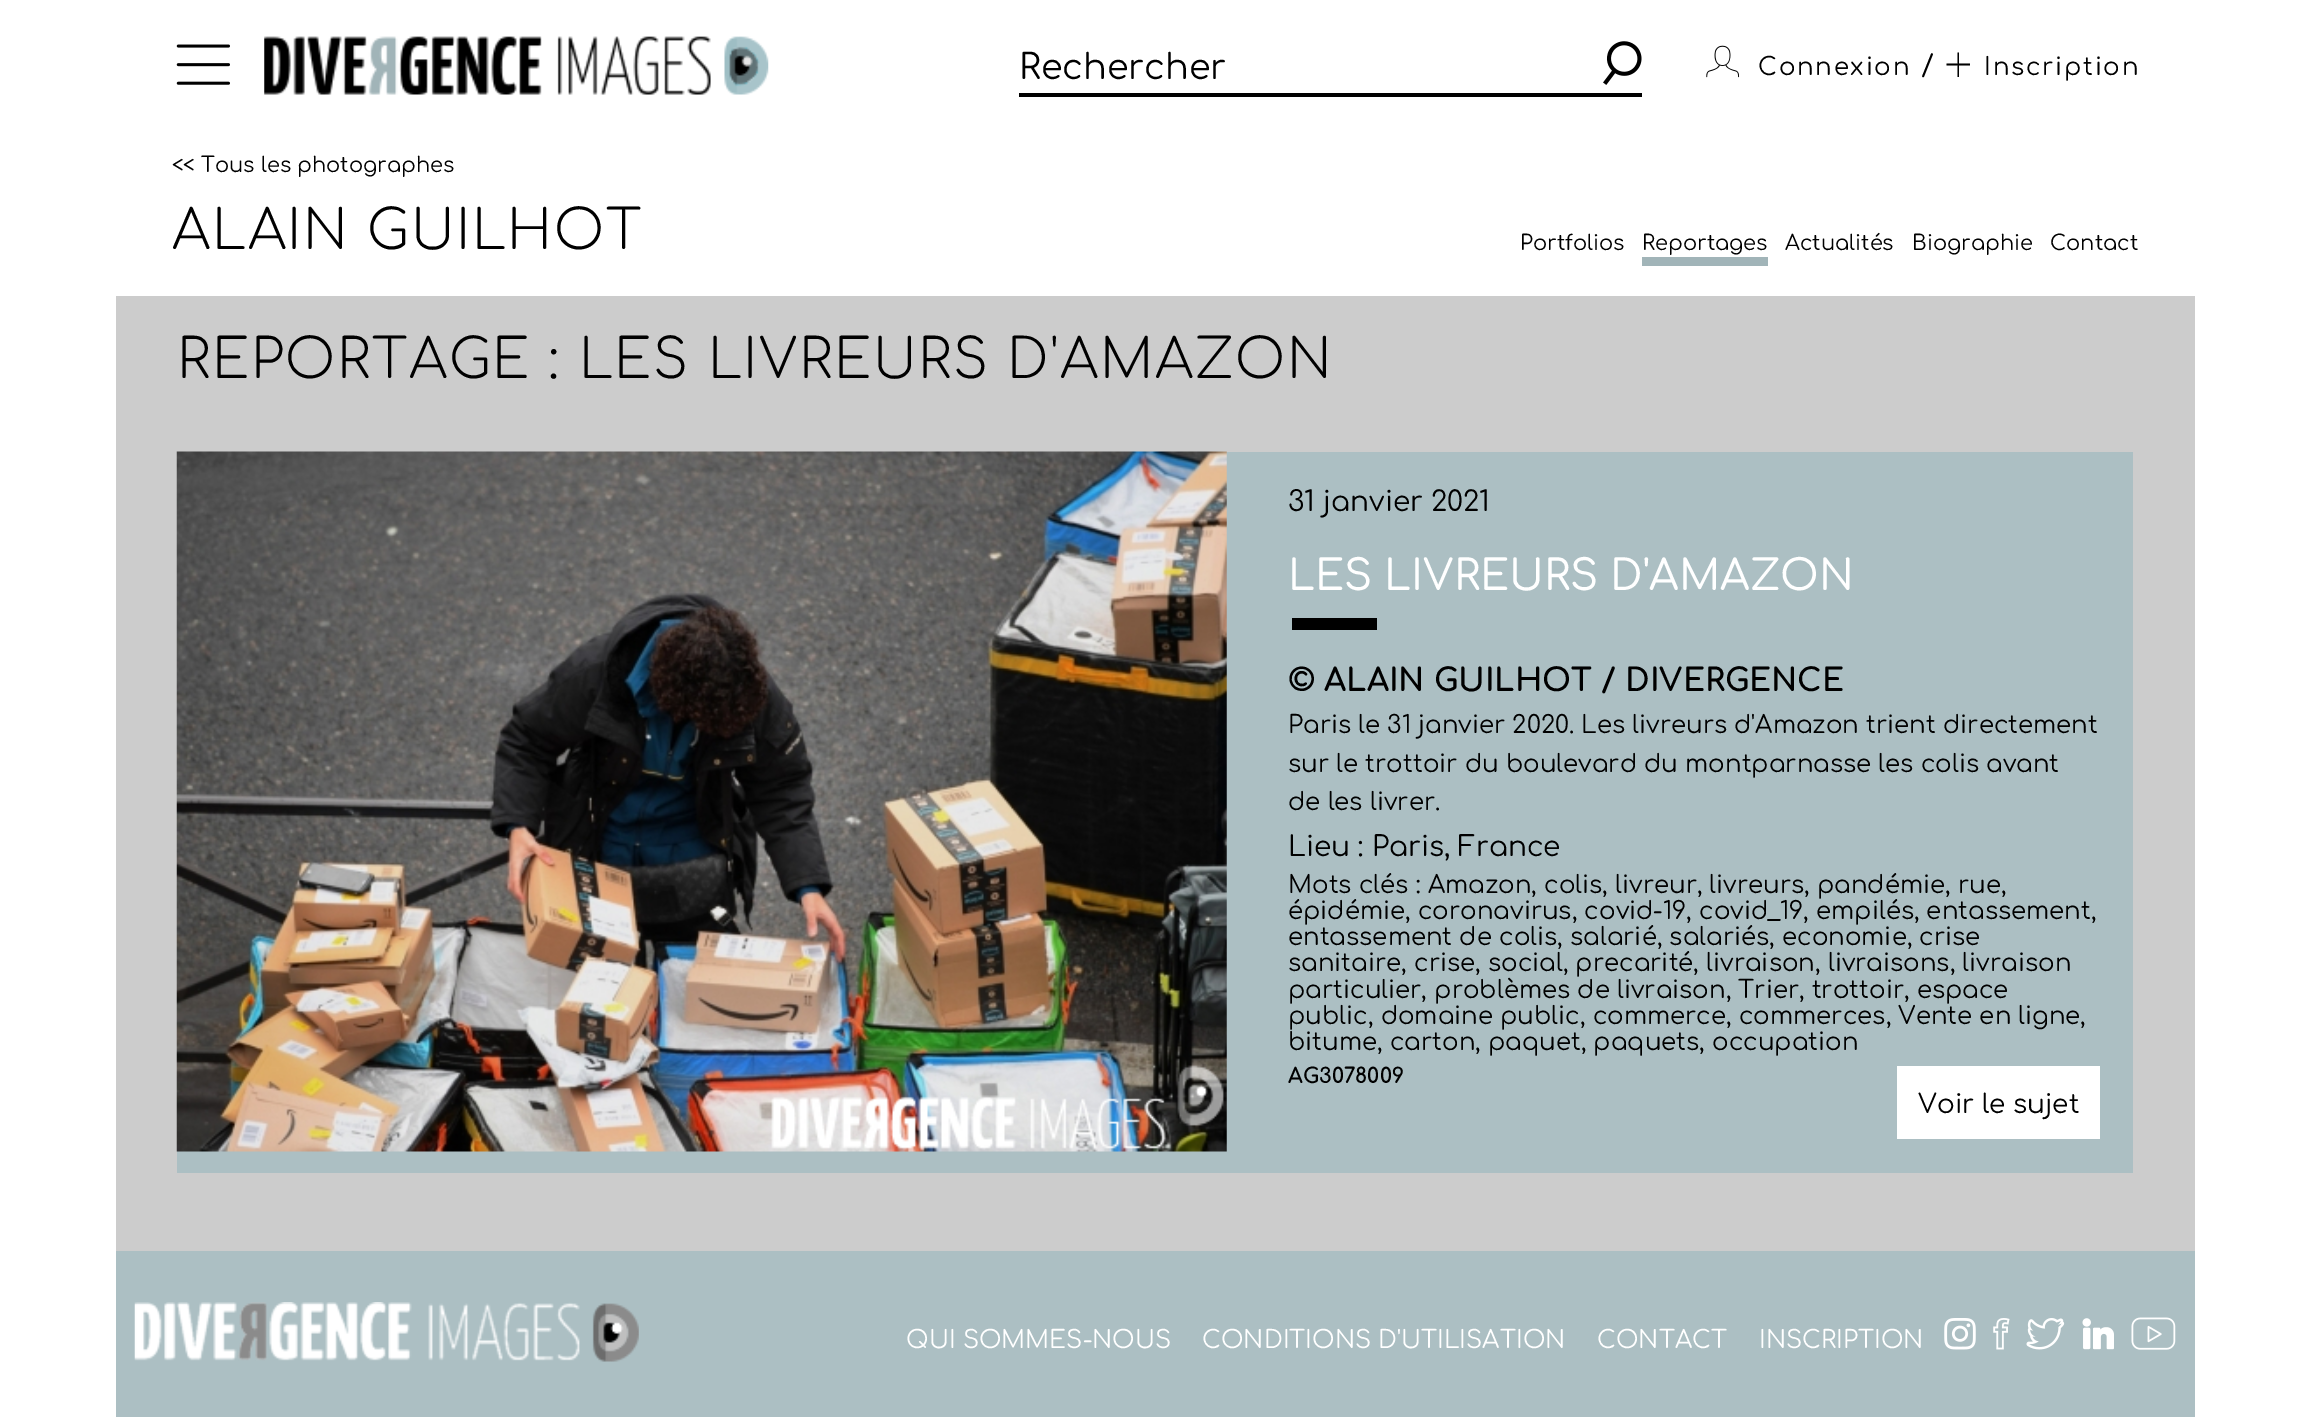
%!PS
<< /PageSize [2309 1417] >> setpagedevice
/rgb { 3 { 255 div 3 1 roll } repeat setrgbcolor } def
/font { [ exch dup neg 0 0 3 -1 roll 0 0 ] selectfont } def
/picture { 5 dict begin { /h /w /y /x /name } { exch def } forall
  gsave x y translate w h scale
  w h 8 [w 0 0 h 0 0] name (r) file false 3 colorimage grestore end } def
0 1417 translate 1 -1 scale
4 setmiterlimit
255 255 255 rgb
0 0 2309 1417 rectfill
(img/1.rgb) 176 44 54 41 picture
(img/2.rgb) 264 36 505 59 picture
0 0 0 rgb
1019 93 623 4 rectfill
(img/3.rgb) 1603 41 39 44 picture
(img/4.rgb) 1706 45 34 33 picture
1957.5 52.5 moveto 1959 52.5 lineto 1959 77 lineto 1957.5 77 lineto closepath 1946.5 63.5 moveto 1970 63.5 lineto 1970 65.5 lineto 1946.5 65.5 lineto closepath fill
[
  [1642 257 126 9 161 180 184]
  [116 296 2079 955 204 204 204]
  [177 452 1956 721 172 191 195]
] { aload pop rgb rectfill } forall
(img/5.rgb) 176 451 1051 701 picture
[
  [1292 618 85 12 0 0 0]
  [1897 1066 203 73 255 255 255]
  [116 1251 2079 166 172 191 195]
] { aload pop rgb rectfill } forall
(img/6.rgb) 134 1302 505 60 picture
(img/7.rgb) 1944 1318 32 32 picture
(img/8.rgb) 1993 1318 17 32 picture
(img/9.rgb) 2026 1318 39 32 picture
(img/10.rgb) 2082 1318 32 32 picture
(img/11.rgb) 2131 1317 45 33 picture
/Comfortaa-Regular 35 font
0 0 0 rgb
1019 79 moveto (Rechercher) show
/Comfortaa-Regular 24.5 font
1758 75 moveto 1.75 0 (Connexion) ashow
/Comfortaa-Regular 28 font
1921 75 moveto 1.75 0 (/) ashow
/Comfortaa-Regular 24.5 font
1984 75 moveto 1.75 0 (Inscription) ashow
/Comfortaa-Regular 21 font
172 172 moveto (<< Tous les photographes) show
/Comfortaa-Light 54.25 font
172 249 moveto 1.75 0 (ALAIN GUILHOT) ashow
/Comfortaa-Regular 21 font
[
  [(Portfolios) 1520 250]
  [(Reportages) 1642 250]
  [(Actualités) 1785 250]
  [(Biographie) 1912 250]
  [(Contact) 2050 250]
] { aload pop moveto show } forall
/Comfortaa-Light 54.25 font
177 378 moveto 1.75 0 (REPORTAGE : LES LIVREURS D'AMAZON) ashow
/Comfortaa-Regular 28 font
1288 511 moveto (31 janvier 2021) show
/Comfortaa-Medium 42 font
255 255 255 rgb
1288 590 moveto (LES LIVREURS D'AMAZON) show
/Comfortaa-Bold 31.5 font
0 0 0 rgb
1288 691 moveto (© ALAIN GUILHOT / DIVERGENCE) show
/Comfortaa-Regular 24.5 font
[
  [(Paris le 31 janvier 2020. Les livreurs d'Amazon trient directement) 1288 733]
  [(sur le trottoir du boulevard du montparnasse les colis avant) 1288 772]
  [(de les livrer.) 1288 810]
] { aload pop moveto show } forall
/Comfortaa-Regular 28 font
1288 856 moveto (Lieu : Paris, France) show
/Comfortaa-Regular 24.5 font
[
  [(Mots clés : Amazon, colis, livreur, livreurs, pandémie, rue,) 1288 893]
  [(épidémie, coronavirus, covid-19, covid_19, empilés, entassement,) 1288 919]
  [(entassement de colis, salarié, salariés, economie, crise) 1288 945]
  [(sanitaire, crise, social, precarité, livraison, livraisons, livraison) 1288 971]
  [(particulier, problèmes de livraison, Trier, trottoir, espace) 1288 998]
  [(public, domaine public, commerce, commerces, Vente en ligne,) 1288 1024]
  [(bitume, carton, paquet, paquets, occupation) 1288 1050]
] { aload pop moveto show } forall
/Comfortaa-Bold 21 font
1288 1083 moveto (AG3078009) show
/Comfortaa-Regular 26.25 font
1918 1113 moveto (Voir le sujet) show
/Comfortaa-Regular 24.5 font
255 255 255 rgb
[
  [(QUI SOMMES-NOUS) 906 1348]
  [(CONDITIONS D'UTILISATION) 1202 1348]
  [(CONTACT) 1597 1348]
  [(INSCRIPTION) 1759 1348]
] { aload pop moveto show } forall
showpage
